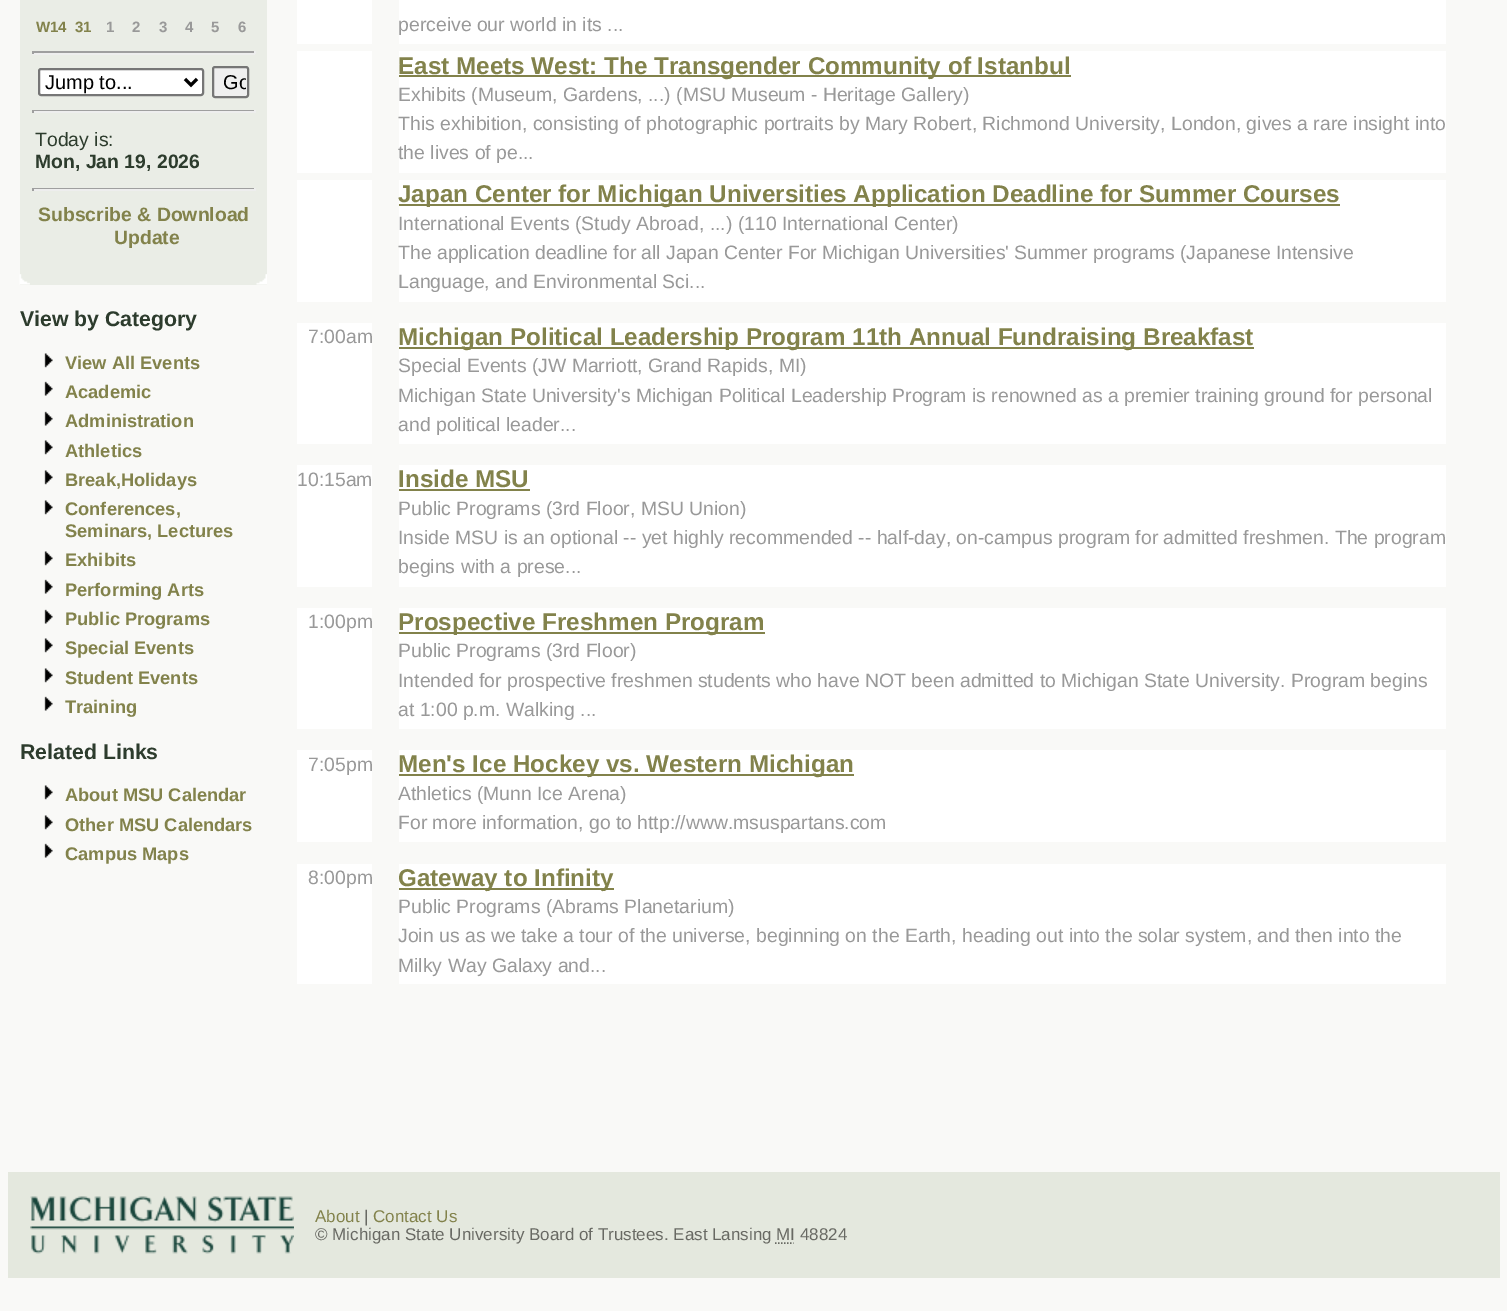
%!PS
<< /PageSize [1507 1311] >> setpagedevice
/rgb { 3 { 255 div 3 1 roll } repeat setrgbcolor } def
/font { [ exch dup neg 0 0 3 -1 roll 0 0 ] selectfont } def
/roundrect { 5 dict begin { /r /h /w /y /x } { exch def } forall
  x r add y moveto x w add y 2 copy h add r arct x w add y h add x 1 index r arct
  x y h add x y r arct x y 2 copy exch w add exch r arct closepath end } def
/picture { 5 dict begin { /h /w /y /x /name } { exch def } forall
  gsave x y translate w h scale
  w h 8 [w 0 0 h 0 0] name (r) file false 3 colorimage grestore end } def
0 1311 translate 1 -1 scale
4 setmiterlimit
249 249 247 rgb
0 0 1507 1311 rectfill
[
  [20 0 12 285 234 237 230]
  [32 0 235 254 234 237 230]
  [32 51 223 2 159 159 159]
  [254 51 2 3 238 238 238]
  [32 53 223 2 238 238 238]
  [32 51 2 3 159 159 159]
] { aload pop rgb rectfill } forall
255 255 255 rgb
39 69 164 26 2 roundrect gsave fill grestore
118 118 118 rgb
2 setlinewidth
stroke
0 0 0 rgb
3 setlinewidth
185 79 moveto 191 85 lineto 197 79 lineto stroke
239 239 239 rgb
213 67 35 30 2 roundrect gsave fill grestore
118 118 118 rgb
2 setlinewidth
stroke
[
  [32 110 223 1 159 159 159]
  [254 110 2 3 238 238 238]
  [32 111 223 2 238 238 238]
  [32 110 2 3 159 159 159]
  [32 188 223 1 159 159 159]
  [254 188 2 3 238 238 238]
  [32 189 223 2 238 238 238]
  [32 188 2 3 159 159 159]
] { aload pop rgb rectfill } forall
(img/1.rgb) 19 274 11 11 picture
234 237 230 rgb
32 254 235 31 rectfill
(img/2.rgb) 256 274 11 11 picture
(img/3.rgb) 44 353 9 15 picture
(img/4.rgb) 44 381 9 15 picture
(img/4.rgb) 44 411 9 15 picture
(img/3.rgb) 44 440 9 15 picture
(img/3.rgb) 44 470 9 15 picture
(img/3.rgb) 44 500 9 15 picture
(img/3.rgb) 44 551 9 15 picture
(img/4.rgb) 44 579 9 15 picture
(img/4.rgb) 44 609 9 15 picture
(img/3.rgb) 44 638 9 15 picture
(img/3.rgb) 44 668 9 15 picture
(img/4.rgb) 44 696 9 15 picture
(img/3.rgb) 44 785 9 15 picture
(img/3.rgb) 44 815 9 15 picture
(img/4.rgb) 44 843 9 15 picture
[
  [297 0 75 44 255 255 255]
  [399 0 1047 44 255 255 255]
  [297 51 75 122 255 255 255]
  [399 51 1047 122 255 255 255]
  [399 75 672 2 130 130 75]
  [297 180 75 122 255 255 255]
  [399 180 1047 122 255 255 255]
  [399 204 941 2 130 130 75]
  [297 323 75 121 255 255 255]
  [399 323 1047 121 255 255 255]
  [399 347 855 2 130 130 75]
  [297 465 75 122 255 255 255]
  [399 465 1047 122 255 255 255]
  [399 489 131 2 130 130 75]
  [297 608 75 121 255 255 255]
  [399 608 1047 121 255 255 255]
  [399 632 366 2 130 130 75]
  [297 750 75 92 255 255 255]
  [399 750 1047 92 255 255 255]
  [399 774 455 2 130 130 75]
  [297 864 75 120 255 255 255]
  [399 864 1047 120 255 255 255]
  [399 888 215 2 130 130 75]
  [8 1172 1492 106 228 232 222]
] { aload pop rgb rectfill } forall
(img/5.rgb) 30 1196 264 58 picture
104 105 99 rgb
1.5 setlinewidth
[1.5 1.5] 0 setdash
775 1243 moveto 793.5 1243 lineto stroke
/LiberationSans-Bold 15 font
130 130 75 rgb
36 32 moveto (W14) show
75 32 moveto (31) show
153 153 153 rgb
[
  [(1) 106 32]
  [(2) 132 32]
  [(3) 159 32]
  [(4) 185 32]
  [(5) 211 32]
  [(6) 238 32]
] { aload pop moveto show } forall
/LiberationSans-Regular 20 font
0 0 0 rgb
45 89 moveto (Jump to...) show
gsave
215 69 31 26 rectclip
223 89 moveto (Go) show
grestore
/LiberationSans-Regular 19.4 font
45 60 45 rgb
35 146 moveto (Today is:) show
/LiberationSans-Bold 19.4 font
35 168 moveto (Mon, Jan 19, 2026) show
130 130 75 rgb
38 221 moveto (Subscribe & Download) show
114 244 moveto (Update) show
/LiberationSans-Bold 21.25 font
45 60 45 rgb
20 326 moveto (View by Category) show
/LiberationSans-Bold 18.25 font
130 130 75 rgb
[
  [(View All Events) 65 369]
  [(Academic) 65 398]
  [(Administration) 65 427]
  [(Athletics) 65 457]
  [(Break,Holidays) 65 486]
  [(Conferences,) 65 515]
  [(Seminars, Lectures) 65 537]
  [(Exhibits) 65 566]
  [(Performing Arts) 65 596]
  [(Public Programs) 65 625]
  [(Special Events) 65 654]
  [(Student Events) 65 684]
  [(Training) 65 713]
] { aload pop moveto show } forall
/LiberationSans-Bold 21.25 font
45 60 45 rgb
20 759 moveto (Related Links) show
/LiberationSans-Bold 18.25 font
130 130 75 rgb
[
  [(About MSU Calendar) 65 801]
  [(Other MSU Calendars) 65 831]
  [(Campus Maps) 65 860]
] { aload pop moveto show } forall
/LiberationSans-Regular 19.4 font
153 153 153 rgb
398 31 moveto (perceive our world in its ...) show
/LiberationSans-Bold 24.25 font
130 130 75 rgb
398 74 moveto (East Meets West: The Transgender Community of Istanbul) show
/LiberationSans-Regular 19.4 font
153 153 153 rgb
[
  [(Exhibits \(Museum, Gardens, ...\) \(MSU Museum - Heritage Gallery\)) 398 101]
  [(This exhibition, consisting of photographic portraits by Mary Robert, Richmond University, London, gives a rare insight into) 398 130]
  [(the lives of pe...) 398 159]
] { aload pop moveto show } forall
/LiberationSans-Bold 24.25 font
130 130 75 rgb
398 202 moveto (Japan Center for Michigan Universities Application Deadline for Summer Courses) show
/LiberationSans-Regular 19.4 font
153 153 153 rgb
398 230 moveto (International Events \(Study Abroad, ...\) \(110 International Center\)) show
398 259 moveto -0.1 0 32 (The application deadline for all Japan Center For Michigan Universities' Summer programs \(Japanese Intensive) widthshow
398 288 moveto (Language, and Environmental Sci...) show
308 343 moveto (7:00am) show
/LiberationSans-Bold 24.25 font
130 130 75 rgb
398 345 moveto (Michigan Political Leadership Program 11th Annual Fundraising Breakfast) show
/LiberationSans-Regular 19.4 font
153 153 153 rgb
[
  [(Special Events \(JW Marriott, Grand Rapids, MI\)) 398 372]
  [(Michigan State University's Michigan Political Leadership Program is renowned as a premier training ground for personal) 398 402]
  [(and political leader...) 398 431]
  [(10:15am) 297 486]
] { aload pop moveto show } forall
/LiberationSans-Bold 24.25 font
130 130 75 rgb
398 487 moveto (Inside MSU) show
/LiberationSans-Regular 19.4 font
153 153 153 rgb
[
  [(Public Programs \(3rd Floor, MSU Union\)) 398 515]
  [(Inside MSU is an optional -- yet highly recommended -- half-day, on-campus program for admitted freshmen. The program) 398 544]
  [(begins with a prese...) 398 573]
  [(1:00pm) 308 628]
] { aload pop moveto show } forall
/LiberationSans-Bold 24.25 font
130 130 75 rgb
398 630 moveto (Prospective Freshmen Program) show
/LiberationSans-Regular 19.4 font
153 153 153 rgb
[
  [(Public Programs \(3rd Floor\)) 398 657]
  [(Intended for prospective freshmen students who have NOT been admitted to Michigan State University. Program begins) 398 687]
  [(at 1:00 p.m. Walking ...) 398 716]
  [(7:05pm) 308 771]
] { aload pop moveto show } forall
/LiberationSans-Bold 24.25 font
130 130 75 rgb
398 772 moveto (Men's Ice Hockey vs. Western Michigan) show
/LiberationSans-Regular 19.4 font
153 153 153 rgb
[
  [(Athletics \(Munn Ice Arena\)) 398 800]
  [(For more information, go to http://www.msuspartans.com) 398 829]
  [(8:00pm) 308 884]
] { aload pop moveto show } forall
/LiberationSans-Bold 24.25 font
130 130 75 rgb
398 886 moveto (Gateway to Infinity) show
/LiberationSans-Regular 19.4 font
153 153 153 rgb
[
  [(Public Programs \(Abrams Planetarium\)) 398 913]
  [(Join us as we take a tour of the universe, beginning on the Earth, heading out into the solar system, and then into the) 398 942]
  [(Milky Way Galaxy and...) 398 972]
] { aload pop moveto show } forall
/LiberationSans-Regular 17 font
130 130 75 rgb
315 1222 moveto (About) show
104 105 99 rgb
364 1222 moveto (|) show
130 130 75 rgb
373 1222 moveto (Contact Us) show
104 105 99 rgb
315 1240 moveto (© Michigan State University Board of Trustees. East Lansing MI 48824) show
showpage
